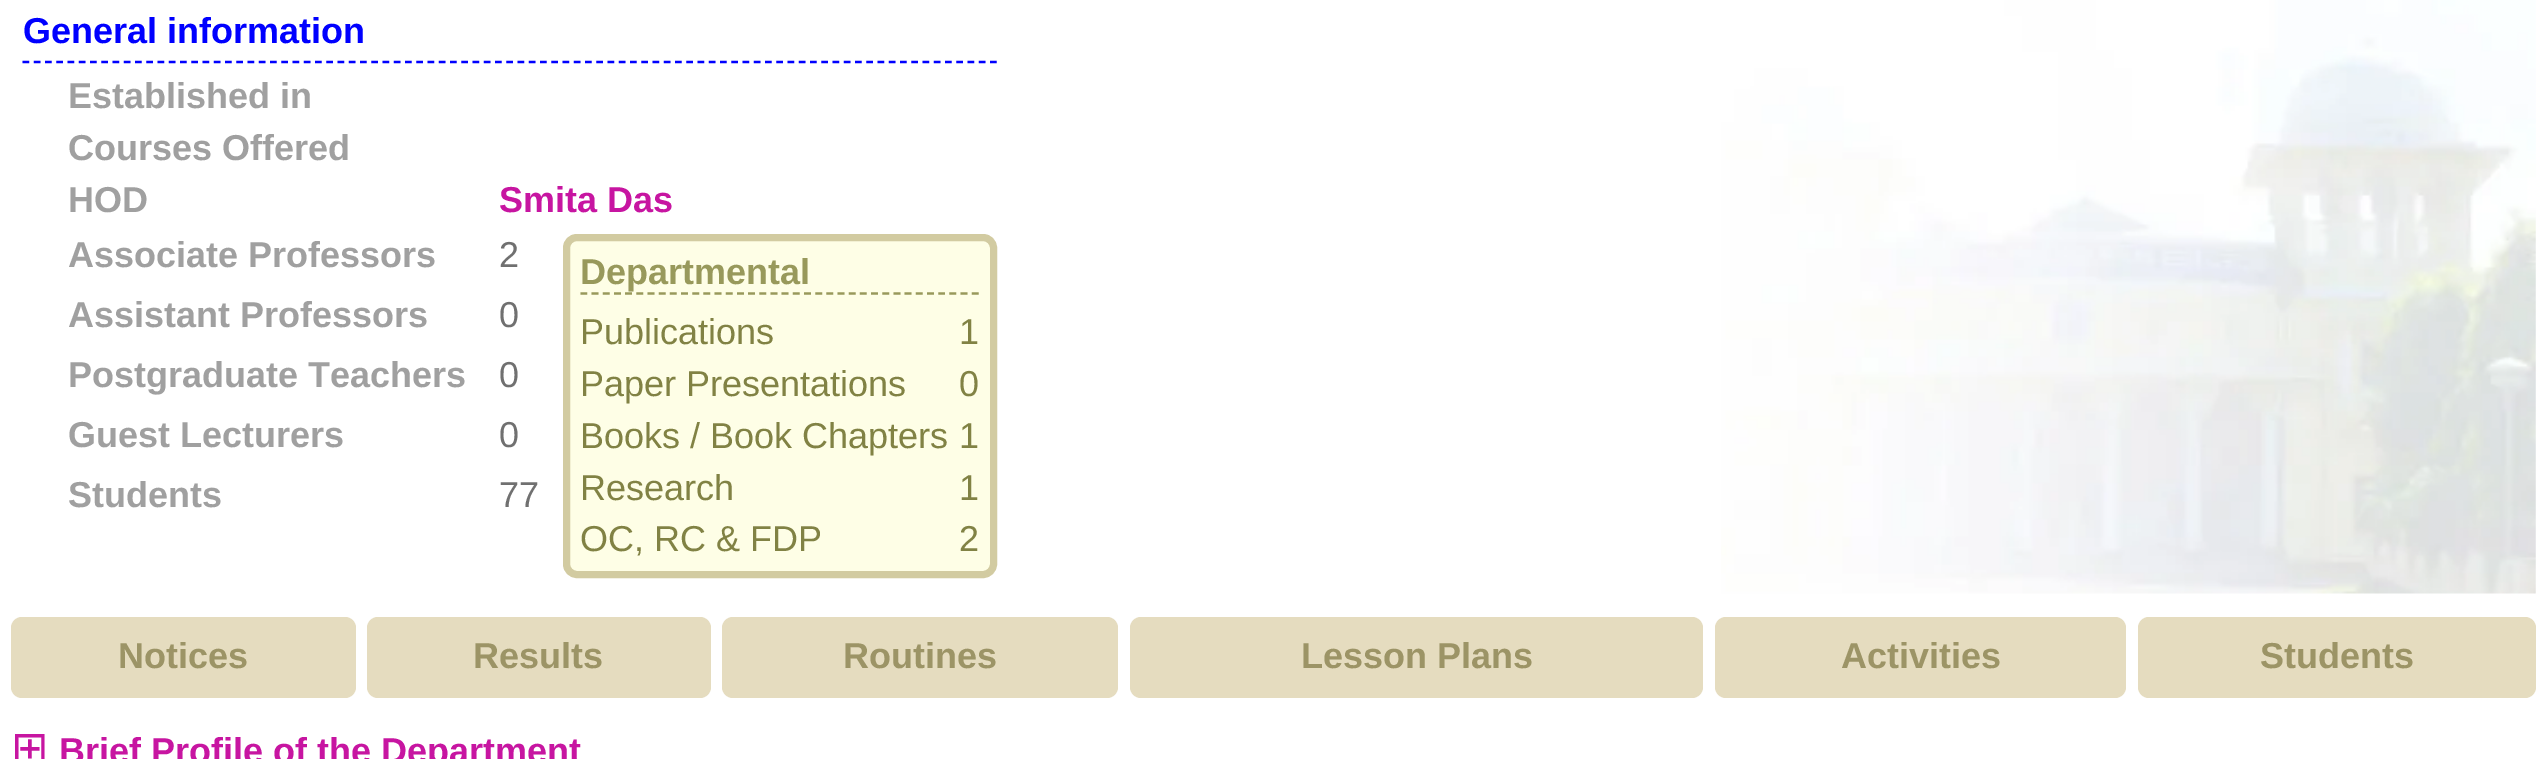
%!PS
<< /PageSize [2547 759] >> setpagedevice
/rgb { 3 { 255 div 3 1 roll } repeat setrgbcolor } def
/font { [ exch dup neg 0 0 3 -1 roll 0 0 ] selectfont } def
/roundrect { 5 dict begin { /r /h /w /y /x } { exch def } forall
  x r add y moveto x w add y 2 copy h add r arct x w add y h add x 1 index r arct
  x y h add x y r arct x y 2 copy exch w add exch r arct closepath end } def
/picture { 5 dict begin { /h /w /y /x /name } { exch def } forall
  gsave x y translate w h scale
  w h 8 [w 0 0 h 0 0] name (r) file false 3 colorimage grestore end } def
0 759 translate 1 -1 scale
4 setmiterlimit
255 255 255 rgb
0 0 2547 759 rectfill
(img/1.rgb) 1721 0 815 594 picture
0 0 255 rgb
2.2 setlinewidth
[6.75 4.5] 0 setdash
22.5 62 moveto 997 62 lineto stroke
254 254 230 rgb
566.5 237.5 427 337 10.5 roundrect gsave fill grestore
210 203 161 rgb
7 setlinewidth
[] 0 setdash
stroke
152 153 91 rgb
2.2 setlinewidth
[6.75 4.43] 0 setdash
580.5 293.5 moveto 979 293.5 lineto stroke
229 220 191 rgb
11 617 345 81 11 roundrect fill
367 617 344 81 11 roundrect fill
722 617 396 81 11 roundrect fill
1130 617 573 81 11 roundrect fill
1715 617 411 81 11 roundrect fill
2138 617 398 81 11 roundrect fill
/LiberationSans-Bold 36 font
0 0 255 rgb
23 43 moveto (General information) show
160 160 160 rgb
[
  [(Established in) 68 108]
  [(Courses Offered) 68 160]
  [(HOD) 68 212]
] { aload pop moveto show } forall
199 21 161 rgb
499 212 moveto (Smita Das) show
160 160 160 rgb
68 267 moveto (Associate Professors) show
/LiberationSans-Regular 36 font
112 112 112 rgb
499 267 moveto (2) show
/LiberationSans-Bold 36 font
152 153 91 rgb
580 284 moveto (Departmental) show
/LiberationSans-Regular 36 font
129 130 68 rgb
[
  [(Publications) 580 344]
  [(1) 959 344]
  [(Paper Presentations) 580 396]
  [(0) 959 396]
  [(Books / Book Chapters) 580 448]
  [(1) 959 448]
  [(Research) 580 500]
  [(1) 959 500]
  [(OC, RC & FDP) 580 551]
  [(2) 959 551]
] { aload pop moveto show } forall
/LiberationSans-Bold 36 font
160 160 160 rgb
68 327 moveto (Assistant Professors) show
/LiberationSans-Regular 36 font
112 112 112 rgb
499 327 moveto (0) show
/LiberationSans-Bold 36 font
160 160 160 rgb
68 387 moveto (Postgraduate Teachers) show
/LiberationSans-Regular 36 font
112 112 112 rgb
499 387 moveto (0) show
/LiberationSans-Bold 36 font
160 160 160 rgb
68 447 moveto (Guest Lecturers) show
/LiberationSans-Regular 36 font
112 112 112 rgb
499 447 moveto (0) show
/LiberationSans-Bold 36 font
160 160 160 rgb
68 507 moveto (Students) show
/LiberationSans-Regular 36 font
112 112 112 rgb
499 507 moveto (77) show
/LiberationSans-Bold 36 font
156 148 102 rgb
[
  [(Notices) 118 668]
  [(Results) 473 668]
  [(Routines) 843 668]
  [(Lesson Plans) 1301 668]
  [(Activities) 1841 668]
  [(Students) 2260 668]
] { aload pop moveto show } forall
/DejaVuSans-Regular 45 font
199 21 161 rgb
11 763 moveto (⊞) show
/LiberationSans-Bold 36 font
59 763 moveto (Brief Profile of the Department) show
showpage
